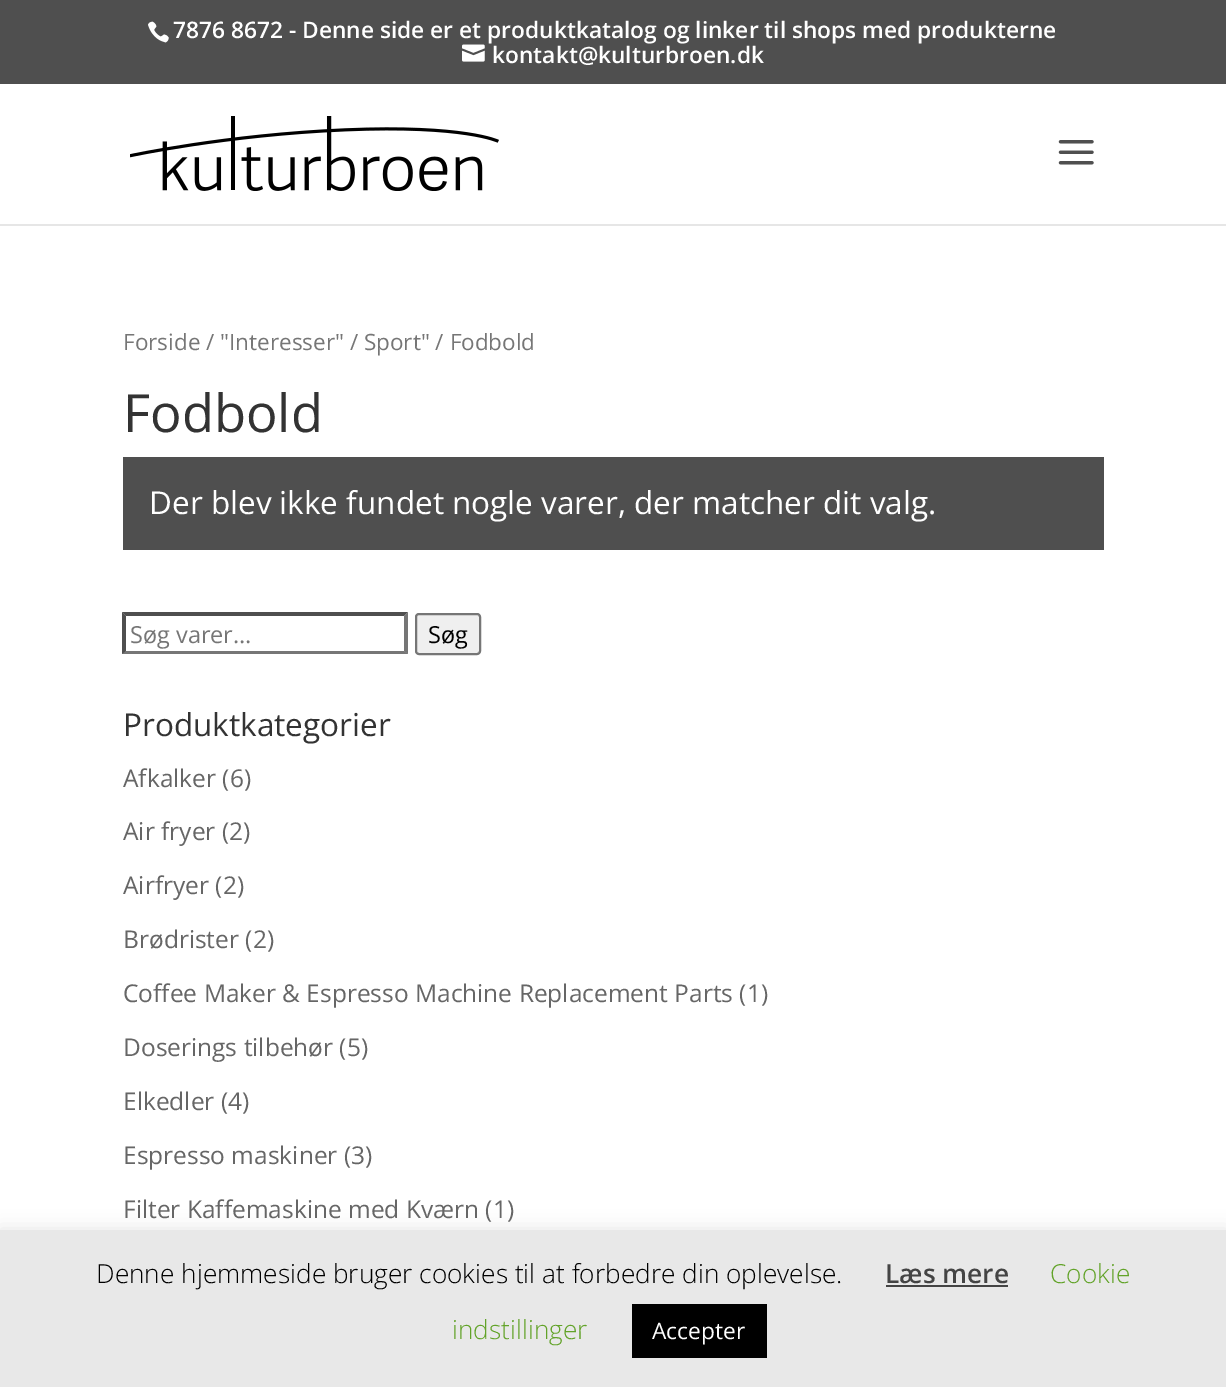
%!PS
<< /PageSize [1226 1387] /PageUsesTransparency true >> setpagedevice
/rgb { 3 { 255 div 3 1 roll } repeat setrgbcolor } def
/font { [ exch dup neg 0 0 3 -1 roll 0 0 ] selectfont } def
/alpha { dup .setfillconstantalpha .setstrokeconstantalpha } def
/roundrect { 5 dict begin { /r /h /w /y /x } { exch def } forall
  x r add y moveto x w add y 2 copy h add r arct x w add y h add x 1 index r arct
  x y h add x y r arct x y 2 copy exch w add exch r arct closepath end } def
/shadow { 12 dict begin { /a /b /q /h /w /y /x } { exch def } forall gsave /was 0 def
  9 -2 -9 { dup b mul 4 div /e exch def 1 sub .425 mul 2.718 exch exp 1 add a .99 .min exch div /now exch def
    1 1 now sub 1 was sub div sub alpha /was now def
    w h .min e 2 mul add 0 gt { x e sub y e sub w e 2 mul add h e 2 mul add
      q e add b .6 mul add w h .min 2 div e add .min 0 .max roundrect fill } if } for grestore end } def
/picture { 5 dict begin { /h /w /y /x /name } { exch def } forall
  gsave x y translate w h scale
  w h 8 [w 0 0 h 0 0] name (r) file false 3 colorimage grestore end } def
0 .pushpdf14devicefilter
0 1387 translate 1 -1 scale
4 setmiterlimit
255 255 255 rgb
0 0 1226 1387 rectfill
79 79 79 rgb
0 0 1226 84 rectfill
(img/1.rgb) 148 21 21 22 picture
(img/2.rgb) 462 44 23 18 picture
230 230 230 rgb
0 224 moveto 0 226 lineto 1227 226 lineto 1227 86 lineto 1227 224 lineto closepath fill
(img/3.rgb) 130 116 369 75 picture
(img/4.rgb) 1058 140 36 25 picture
79 79 79 rgb
123 457 981 93 rectfill
122 612 moveto 408 612 lineto 404 616 lineto 126 616 lineto closepath fill
118 118 118 rgb
408 612 moveto 408 654 lineto 404 651 lineto 404 616 lineto closepath fill
408 654 moveto 122 654 lineto 126 651 lineto 404 651 lineto closepath fill
79 79 79 rgb
122 654 moveto 122 612 lineto 126 616 lineto 126 651 lineto closepath fill
239 239 239 rgb
416 614 64 40 3 roundrect gsave fill grestore
118 118 118 rgb
2 setlinewidth
stroke
172 171 171 rgb
0 1229 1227 157 0 9 0.3 shadow
[
  [0 1230 1226 157 232 232 232]
  [886 1285 122 2 68 68 68]
  [632 1304 135 54 0 0 0]
] { aload pop rgb rectfill } forall
/OpenSans-SemiBold 22.75 font
255 255 255 rgb
173 38 moveto (7876 8672 - Denne side er et produktkatalog og linker til shops med produkterne) show
492 63 moveto (kontakt@kulturbroen.dk) show
/OpenSans-Regular 22.5 font
118 118 118 rgb
123 350 moveto (Forside / "Interesser" / Sport" / Fodbold) show
/OpenSans-Regular 52.5 font
51 51 51 rgb
123 432 moveto (Fodbold) show
/OpenSans-Regular 31.5 font
255 255 255 rgb
149 514 moveto (Der blev ikke fundet nogle varer, der matcher dit valg.) show
/OpenSans-Regular 23.5 font
118 118 118 rgb
130 643 moveto (Søg varer…) show
0 0 0 rgb
428 643 moveto (Søg) show
/OpenSans-Regular 31.5 font
51 51 51 rgb
123 736 moveto (Produktkategorier) show
/OpenSans-Regular 24.5 font
102 102 102 rgb
[
  [(Afkalker \(6\)) 123 787]
  [(Air fryer \(2\)) 123 840]
  [(Airfryer \(2\)) 123 894]
  [(Brødrister \(2\)) 123 948]
  [(Coffee Maker & Espresso Machine Replacement Parts \(1\)) 123 1002]
  [(Doserings tilbehør \(5\)) 123 1056]
  [(Elkedler \(4\)) 123 1110]
  [(Espresso maskiner \(3\)) 123 1164]
  [(Filter Kaffemaskine med Kværn \(1\)) 123 1218]
] { aload pop moveto show } forall
/OpenSans-Light 26.25 font
0 0 0 rgb
96 1283 moveto (Denne hjemmeside bruger cookies til at forbedre din oplevelse.) show
/OpenSans-SemiBold 26.25 font
68 68 68 rgb
885 1283 moveto (Læs mere) show
/OpenSans-Light 26.25 font
98 163 41 rgb
1050 1283 moveto (Cookie) show
452 1339 moveto (indstillinger) show
/OpenSans-Regular 22.75 font
255 255 255 rgb
652 1339 moveto (Accepter) show
.poppdf14devicefilter showpage
